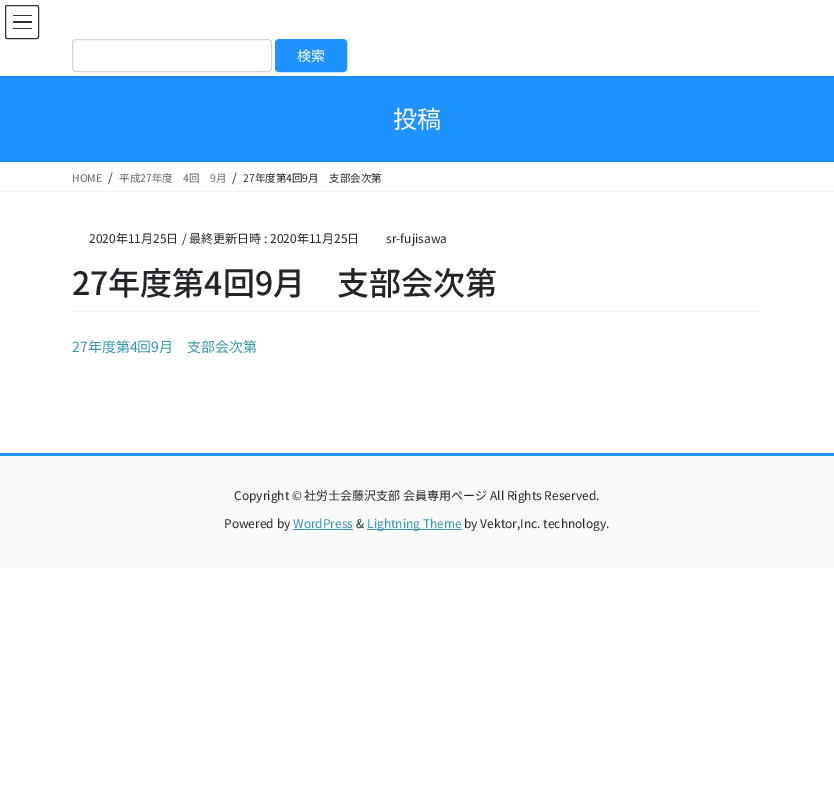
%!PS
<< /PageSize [834 807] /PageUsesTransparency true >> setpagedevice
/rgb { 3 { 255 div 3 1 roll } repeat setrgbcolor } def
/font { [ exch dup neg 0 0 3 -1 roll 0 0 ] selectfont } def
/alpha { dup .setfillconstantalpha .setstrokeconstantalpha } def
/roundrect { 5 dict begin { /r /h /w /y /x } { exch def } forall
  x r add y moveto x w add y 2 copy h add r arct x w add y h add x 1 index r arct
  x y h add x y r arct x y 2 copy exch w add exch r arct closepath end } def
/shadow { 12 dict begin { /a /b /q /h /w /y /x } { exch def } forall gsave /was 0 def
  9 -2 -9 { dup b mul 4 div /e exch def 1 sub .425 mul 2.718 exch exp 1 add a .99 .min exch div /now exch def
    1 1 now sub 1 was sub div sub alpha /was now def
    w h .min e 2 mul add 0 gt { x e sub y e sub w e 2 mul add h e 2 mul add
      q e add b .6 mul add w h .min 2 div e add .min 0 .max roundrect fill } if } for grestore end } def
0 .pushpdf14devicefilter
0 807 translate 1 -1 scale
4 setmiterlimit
255 255 255 rgb
0 0 834 807 rectfill
30 146 255 rgb
0 76 834 86 rectfill
gsave
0 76 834 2 rectclip
0 0 0 rgb
0 1 834 76 0 1.5 0.1 shadow
grestore
[
  [13 15 19 1 51 51 51]
  [13 21 19 2 51 51 51]
  [13 28 19 1 51 51 51]
] { aload pop rgb rectfill } forall
5.5 5.5 33 33 1.5 roundrect stroke
206 212 218 rgb
72.5 39.5 199 32 3.5 roundrect stroke
30 146 255 rgb
275.5 39.5 71 32 3.5 roundrect gsave fill grestore
stroke
[
  [0 191 834 1 242 242 242]
  [72 311 690 1 242 242 242]
  [0 456 834 112 249 249 249]
  [0 453 834 3 30 146 255]
  [293 529 60 1 53 151 168]
  [367 529 95 1 53 151 168]
] { aload pop rgb rectfill } forall
/NotoSansJP-Regular 14 font
255 255 255 rgb
297 61 moveto (検索) show
/NotoSansJP-Regular 24 font
393 128 moveto (投稿) show
/NotoSansJP-Regular 10.5 font
102 102 102 rgb
72 182 moveto (HOME) show
/NotoSansJP-Regular 12 font
33 37 41 rgb
108 182 moveto (/) show
/NotoSansJP-Regular 10.5 font
102 102 102 rgb
119 182 moveto (平成27年度　4回　9月) show
/NotoSansJP-Regular 12 font
33 37 41 rgb
232 182 moveto (/) show
/NotoSansJP-Regular 10.5 font
243 182 moveto (27年度第4回9月　支部会次第) show
/NotoSansJP-Regular 12 font
[
  [(2020年11月25日) 89 243]
  [(/ 最終更新日時 : 2020年11月25日) 182 243]
  [(sr-fujisawa) 386 243]
] { aload pop moveto show } forall
/NotoSansJP-Medium 32 font
72 295 moveto (27年度第4回9月　支部会次第) show
/NotoSansJP-Regular 14 font
53 151 168 rgb
72 352 moveto (27年度第4回9月　支部会次第) show
/NotoSansJP-Regular 12 font
33 37 41 rgb
234 500 moveto (Copyright © 社労士会藤沢支部 会員専用ページ All Rights Reserved.) show
224 528 moveto (Powered by) show
53 151 168 rgb
293 528 moveto (WordPress) show
33 37 41 rgb
356 528 moveto (&) show
53 151 168 rgb
367 528 moveto (Lightning Theme) show
33 37 41 rgb
464 528 moveto (by Vektor,Inc. technology.) show
.poppdf14devicefilter showpage
